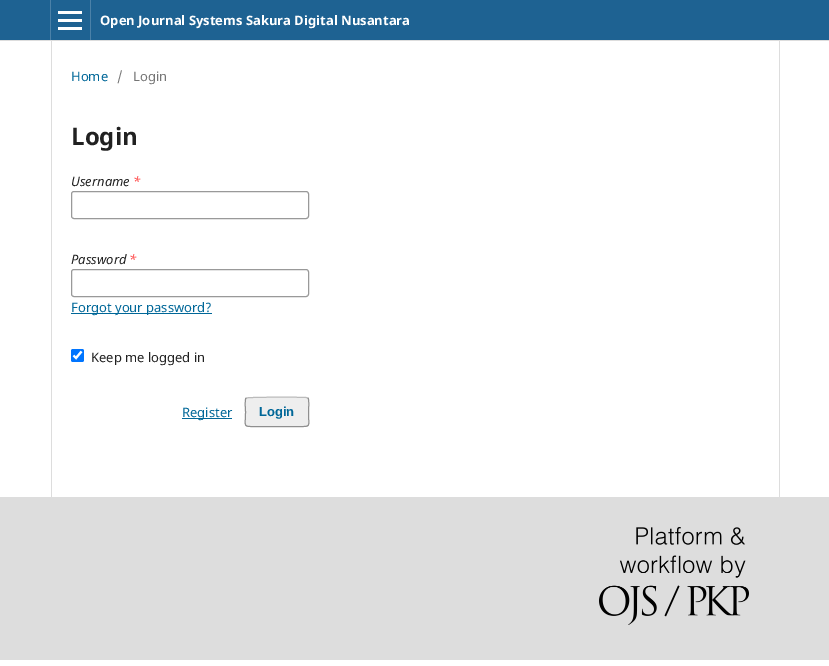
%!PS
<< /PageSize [829 666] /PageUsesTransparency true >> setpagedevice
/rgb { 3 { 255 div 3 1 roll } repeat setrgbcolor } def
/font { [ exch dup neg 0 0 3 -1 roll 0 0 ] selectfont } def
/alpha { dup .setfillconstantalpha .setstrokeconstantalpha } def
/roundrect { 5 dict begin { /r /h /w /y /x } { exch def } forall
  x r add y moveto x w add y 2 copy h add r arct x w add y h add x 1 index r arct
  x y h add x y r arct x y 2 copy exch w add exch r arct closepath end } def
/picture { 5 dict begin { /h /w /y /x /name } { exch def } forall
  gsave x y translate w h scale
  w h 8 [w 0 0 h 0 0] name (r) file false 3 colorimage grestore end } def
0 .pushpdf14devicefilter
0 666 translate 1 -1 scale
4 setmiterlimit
255 255 255 rgb
0 0 829 666 rectfill
[
  [0 0 829 40 30 98 146]
  [0 40 829 1 221 221 221]
  [50 0 1 40 75 129 168]
  [90 0 1 40 75 129 168]
  [58 27 24 3 255 255 255]
  [58 11 24 3 255 255 255]
  [58 19 24 3 255 255 255]
  [51 41 1 456 221 221 221]
] { aload pop rgb rectfill } forall
153 153 153 rgb
71.5 191.5 237 27 2.5 roundrect stroke
71.5 269.5 237 27 2.5 roundrect stroke
0 103 152 rgb
71 313 141 1 rectfill
0 117 255 rgb
71 349 13 13 2 roundrect fill
255 255 255 rgb
2.1 setlinewidth
73.5 355.5 moveto 76 358 lineto 81.5 351.5 lineto stroke
0 103 152 rgb
182 418 50 1 rectfill
238 238 238 rgb
245 397 64 30 3 roundrect fill
187 187 187 rgb
1 setlinewidth
246 398 moveto 246.5 398 lineto 247.5 397 301 397 306 397.5 curveto 308 398 lineto stroke
0.4 alpha
0 0 0 rgb
308 398 moveto 309.5 400 308.5 409.5 308.5 412 curveto 308.5 428 312 426.5 296.5 426.5 curveto 257.5 426.5 lineto 242 426.5 245.5 428 245.5 412 curveto 245.5 409.5 244.5 400 246 398 curveto stroke
1 alpha
221 221 221 rgb
779 41 1 456 rectfill
0 497 829 163 rectfill
(img/1.rgb) 599 527 150 98 picture
/NotoSans-Bold 13 font
255 255 255 rgb
100 25 moveto (Open Journal Systems Sakura Digital Nusantara) show
/NotoSans-Regular 13 font
0 103 152 rgb
71 81 moveto (Home) show
117 117 117 rgb
117 81 moveto (/) show
133 81 moveto (Login) show
/NotoSans-Bold 24 font
33 33 33 rgb
71 145 moveto (Login) show
/NotoSans-Italic 13 font
71 186 moveto (Username) show
255 64 64 rgb
133 186 moveto (*) show
33 33 33 rgb
71 264 moveto (Password) show
255 64 64 rgb
129 264 moveto (*) show
/NotoSans-Regular 13 font
0 103 152 rgb
71 312 moveto (Forgot your password?) show
33 33 33 rgb
91 362 moveto (Keep me logged in) show
0 103 152 rgb
182 417 moveto (Register) show
/LiberationSans-Bold 13 font
259 416 moveto (Login) show
.poppdf14devicefilter showpage
